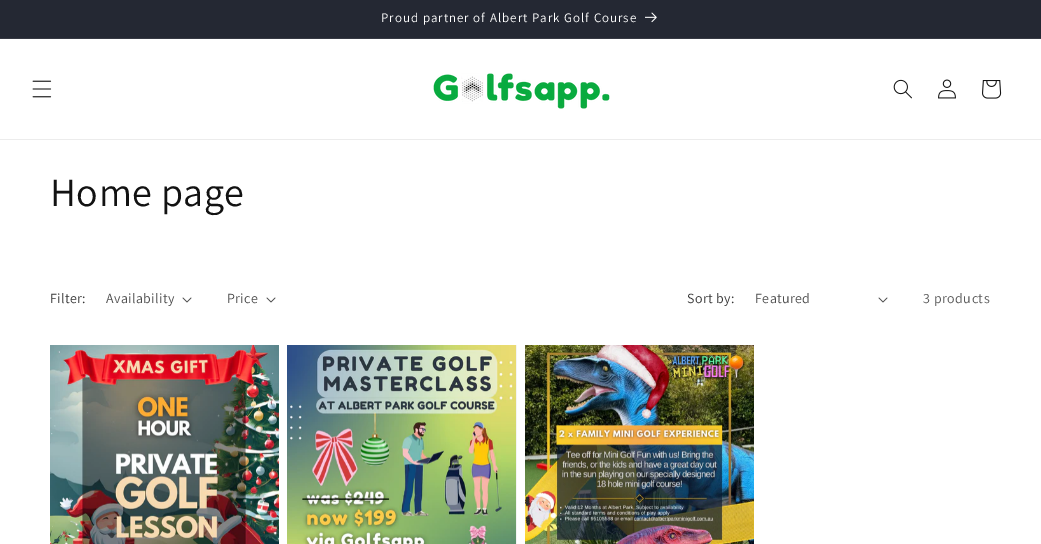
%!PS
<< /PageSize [1041 544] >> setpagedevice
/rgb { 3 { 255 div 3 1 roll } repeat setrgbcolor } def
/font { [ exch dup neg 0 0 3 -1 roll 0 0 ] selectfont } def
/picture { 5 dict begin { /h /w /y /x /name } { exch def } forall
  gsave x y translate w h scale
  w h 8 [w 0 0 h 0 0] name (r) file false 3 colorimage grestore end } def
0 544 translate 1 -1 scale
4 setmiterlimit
255 255 255 rgb
0 0 1041 544 rectfill
36 40 51 rgb
0 0 1041 38 rectfill
54 57 67 rgb
0 38 1041 1 rectfill
(img/1.rgb) 645 12 12 11 picture
236 236 236 rgb
0 139 1041 1 rectfill
(img/2.rgb) 32 80 20 18 picture
(img/3.rgb) 433 73 177 36 picture
(img/4.rgb) 893 79 19 20 picture
(img/5.rgb) 938 79 18 20 picture
(img/6.rgb) 982 80 20 19 picture
(img/7.rgb) 182 297 10 6 picture
(img/7.rgb) 266 297 10 6 picture
(img/7.rgb) 878 297 10 6 picture
(img/8.rgb) 50 345 229 199 picture
243 243 243 rgb
516 345 1 199 rectfill
(img/9.rgb) 287 345 229 199 picture
(img/10.rgb) 525 345 229 199 picture
/Assistant-Regular 13 font
255 255 255 rgb
381 22 moveto 1 0 (Proud partner of Albert Park Golf Course) ashow
/Assistant-Regular 40 font
18 18 18 rgb
50 206 moveto 0.5 0 (Home page) ashow
/Assistant-Regular 14 font
54 54 54 rgb
50 303 moveto 0.4 0 (Filter:) ashow
77 77 77 rgb
106 303 moveto 0.4 0 (Availability) ashow
227 303 moveto 0.4 0 (Price) ashow
54 54 54 rgb
687 303 moveto 0.4 0 (Sort by:) ashow
77 77 77 rgb
755 303 moveto 0.4 0 (Featured) ashow
89 89 89 rgb
923 303 moveto 0.5 0 (3 products) ashow
showpage
